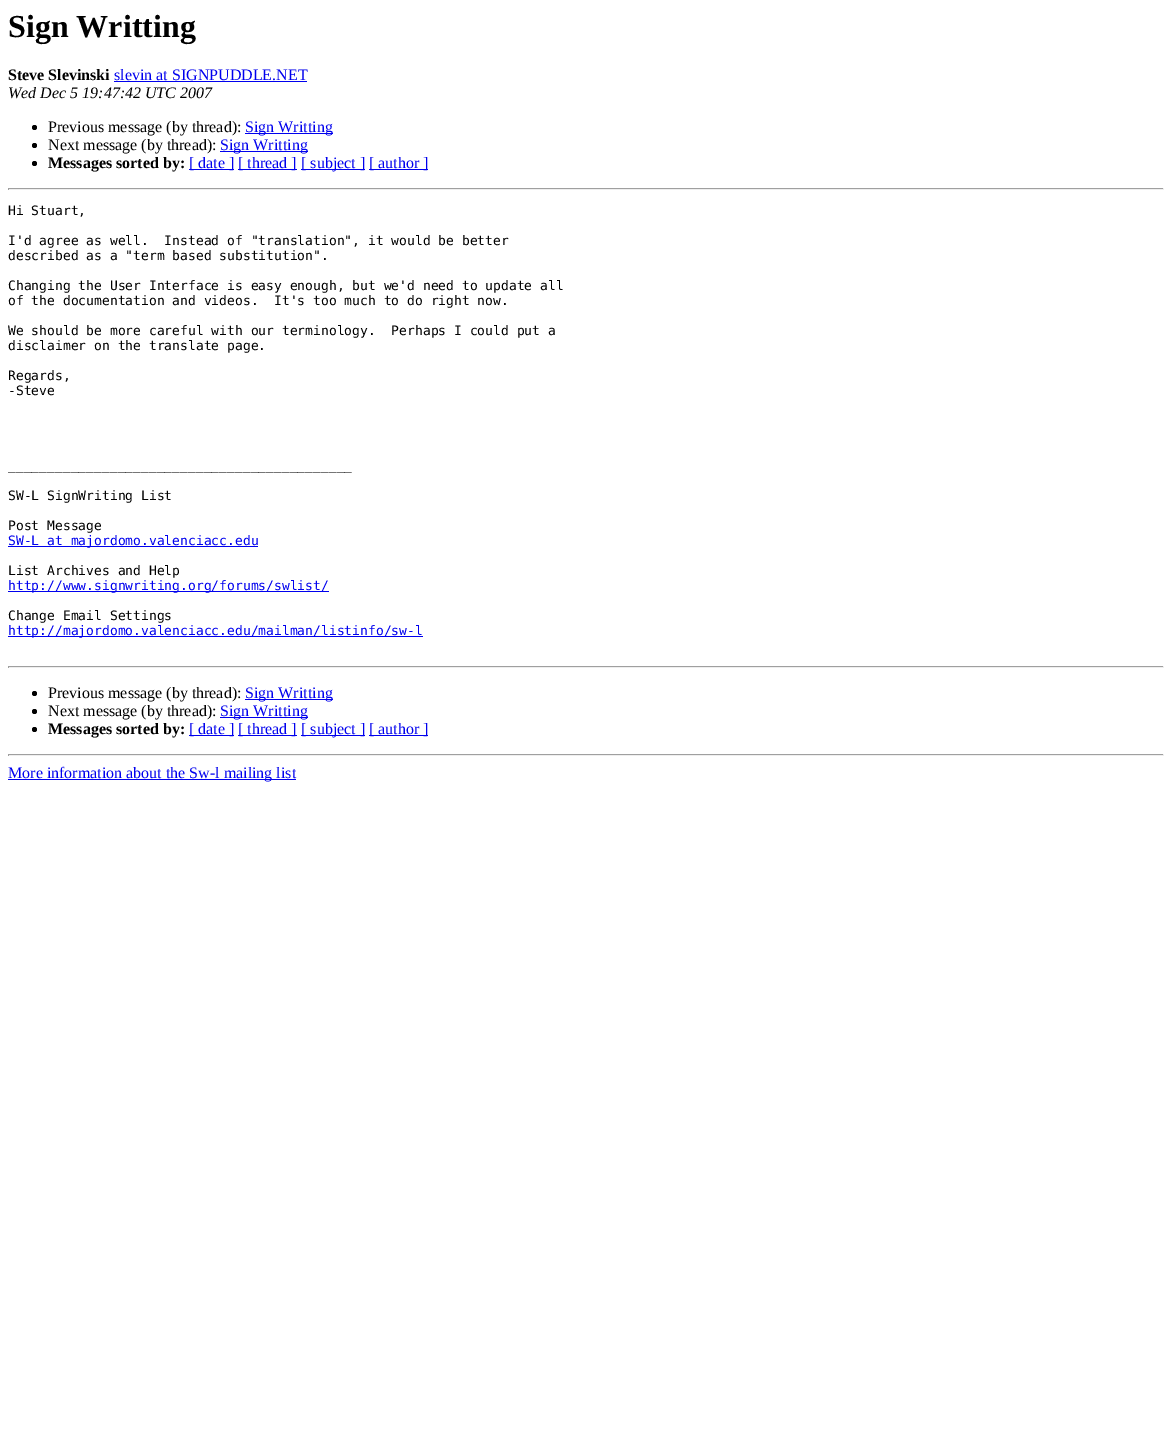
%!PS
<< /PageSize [1172 1456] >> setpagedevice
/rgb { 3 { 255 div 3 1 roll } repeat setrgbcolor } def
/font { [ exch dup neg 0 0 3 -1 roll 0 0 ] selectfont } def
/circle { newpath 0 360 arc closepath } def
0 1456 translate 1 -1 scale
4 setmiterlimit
255 255 255 rgb
0 0 1172 1456 rectfill
0 0 238 rgb
114 81 193 1 rectfill
0 0 0 rgb
34.5 127.5 2.5 circle fill
0 0 238 rgb
245 133 88 1 rectfill
0 0 0 rgb
34.5 145.5 2.5 circle fill
0 0 238 rgb
220 151 88 1 rectfill
0 0 0 rgb
34.5 163.5 2.5 circle fill
[
  [189 169 45 1 0 0 238]
  [238 169 59 1 0 0 238]
  [301 169 64 1 0 0 238]
  [369 169 59 1 0 0 238]
  [8 188 1156 1 159 159 159]
  [1163 188 1 2 238 238 238]
  [8 189 1156 1 238 238 238]
  [8 188 1 2 159 159 159]
  [8 546 250 1 0 0 238]
  [8 591 321 1 0 0 238]
  [8 636 415 1 0 0 238]
  [8 666 1156 1 159 159 159]
  [1163 666 1 2 238 238 238]
  [8 667 1156 1 238 238 238]
  [8 666 1 2 159 159 159]
] { aload pop rgb rectfill } forall
0 0 0 rgb
34.5 693.5 2.5 circle fill
0 0 238 rgb
245 699 88 1 rectfill
0 0 0 rgb
34.5 711.5 2.5 circle fill
0 0 238 rgb
220 717 88 1 rectfill
0 0 0 rgb
34.5 729.5 2.5 circle fill
[
  [189 735 45 1 0 0 238]
  [238 735 59 1 0 0 238]
  [301 735 64 1 0 0 238]
  [369 735 59 1 0 0 238]
  [8 754 1156 1 159 159 159]
  [1163 754 1 2 238 238 238]
  [8 755 1156 1 238 238 238]
  [8 754 1 2 159 159 159]
  [8 779 288 1 0 0 238]
] { aload pop rgb rectfill } forall
/LiberationSerif-Bold 32 font
0 0 0 rgb
8 37 moveto (Sign Writting) show
/LiberationSerif-Bold 16 font
8 80 moveto (Steve Slevinski) show
/LiberationSerif-Regular 16 font
0 0 238 rgb
114 80 moveto (slevin at SIGNPUDDLE.NET) show
/LiberationSerif-Italic 16 font
0 0 0 rgb
8 98 moveto (Wed Dec 5 19:47:42 UTC 2007) show
/LiberationSerif-Regular 16 font
48 132 moveto (Previous message \(by thread\):) show
0 0 238 rgb
245 132 moveto (Sign Writting) show
0 0 0 rgb
48 150 moveto (Next message \(by thread\):) show
0 0 238 rgb
220 150 moveto (Sign Writting) show
/LiberationSerif-Bold 16 font
0 0 0 rgb
48 168 moveto (Messages sorted by:) show
/LiberationSerif-Regular 16 font
0 0 238 rgb
[
  [([ date ]) 189 168]
  [([ thread ]) 238 168]
  [([ subject ]) 301 168]
  [([ author ]) 369 168]
] { aload pop moveto show } forall
/DejaVuSansMono-Regular 13 font
0 0 0 rgb
[
  [(Hi Stuart,) 8 215]
  [(I'd agree as well.  Instead of "translation", it would be better) 8 245]
  [(described as a "term based substitution".) 8 260]
  [(Changing the User Interface is easy enough, but we'd need to update all) 8 290]
  [(of the documentation and videos.  It's too much to do right now.) 8 305]
  [(We should be more careful with our terminology.  Perhaps I could put a) 8 335]
  [(disclaimer on the translate page.) 8 350]
  [(Regards,) 8 380]
  [(-Steve) 8 395]
  [(____________________________________________) 8 470]
  [(SW-L SignWriting List) 8 500]
  [(Post Message) 8 530]
] { aload pop moveto show } forall
0 0 238 rgb
8 545 moveto (SW-L at majordomo.valenciacc.edu) show
0 0 0 rgb
8 575 moveto (List Archives and Help) show
0 0 238 rgb
8 590 moveto (http://www.signwriting.org/forums/swlist/) show
0 0 0 rgb
8 620 moveto (Change Email Settings) show
0 0 238 rgb
8 635 moveto (http://majordomo.valenciacc.edu/mailman/listinfo/sw-l) show
/LiberationSerif-Regular 16 font
0 0 0 rgb
48 698 moveto (Previous message \(by thread\):) show
0 0 238 rgb
245 698 moveto (Sign Writting) show
0 0 0 rgb
48 716 moveto (Next message \(by thread\):) show
0 0 238 rgb
220 716 moveto (Sign Writting) show
/LiberationSerif-Bold 16 font
0 0 0 rgb
48 734 moveto (Messages sorted by:) show
/LiberationSerif-Regular 16 font
0 0 238 rgb
[
  [([ date ]) 189 734]
  [([ thread ]) 238 734]
  [([ subject ]) 301 734]
  [([ author ]) 369 734]
  [(More information about the Sw-l mailing list) 8 778]
] { aload pop moveto show } forall
showpage
